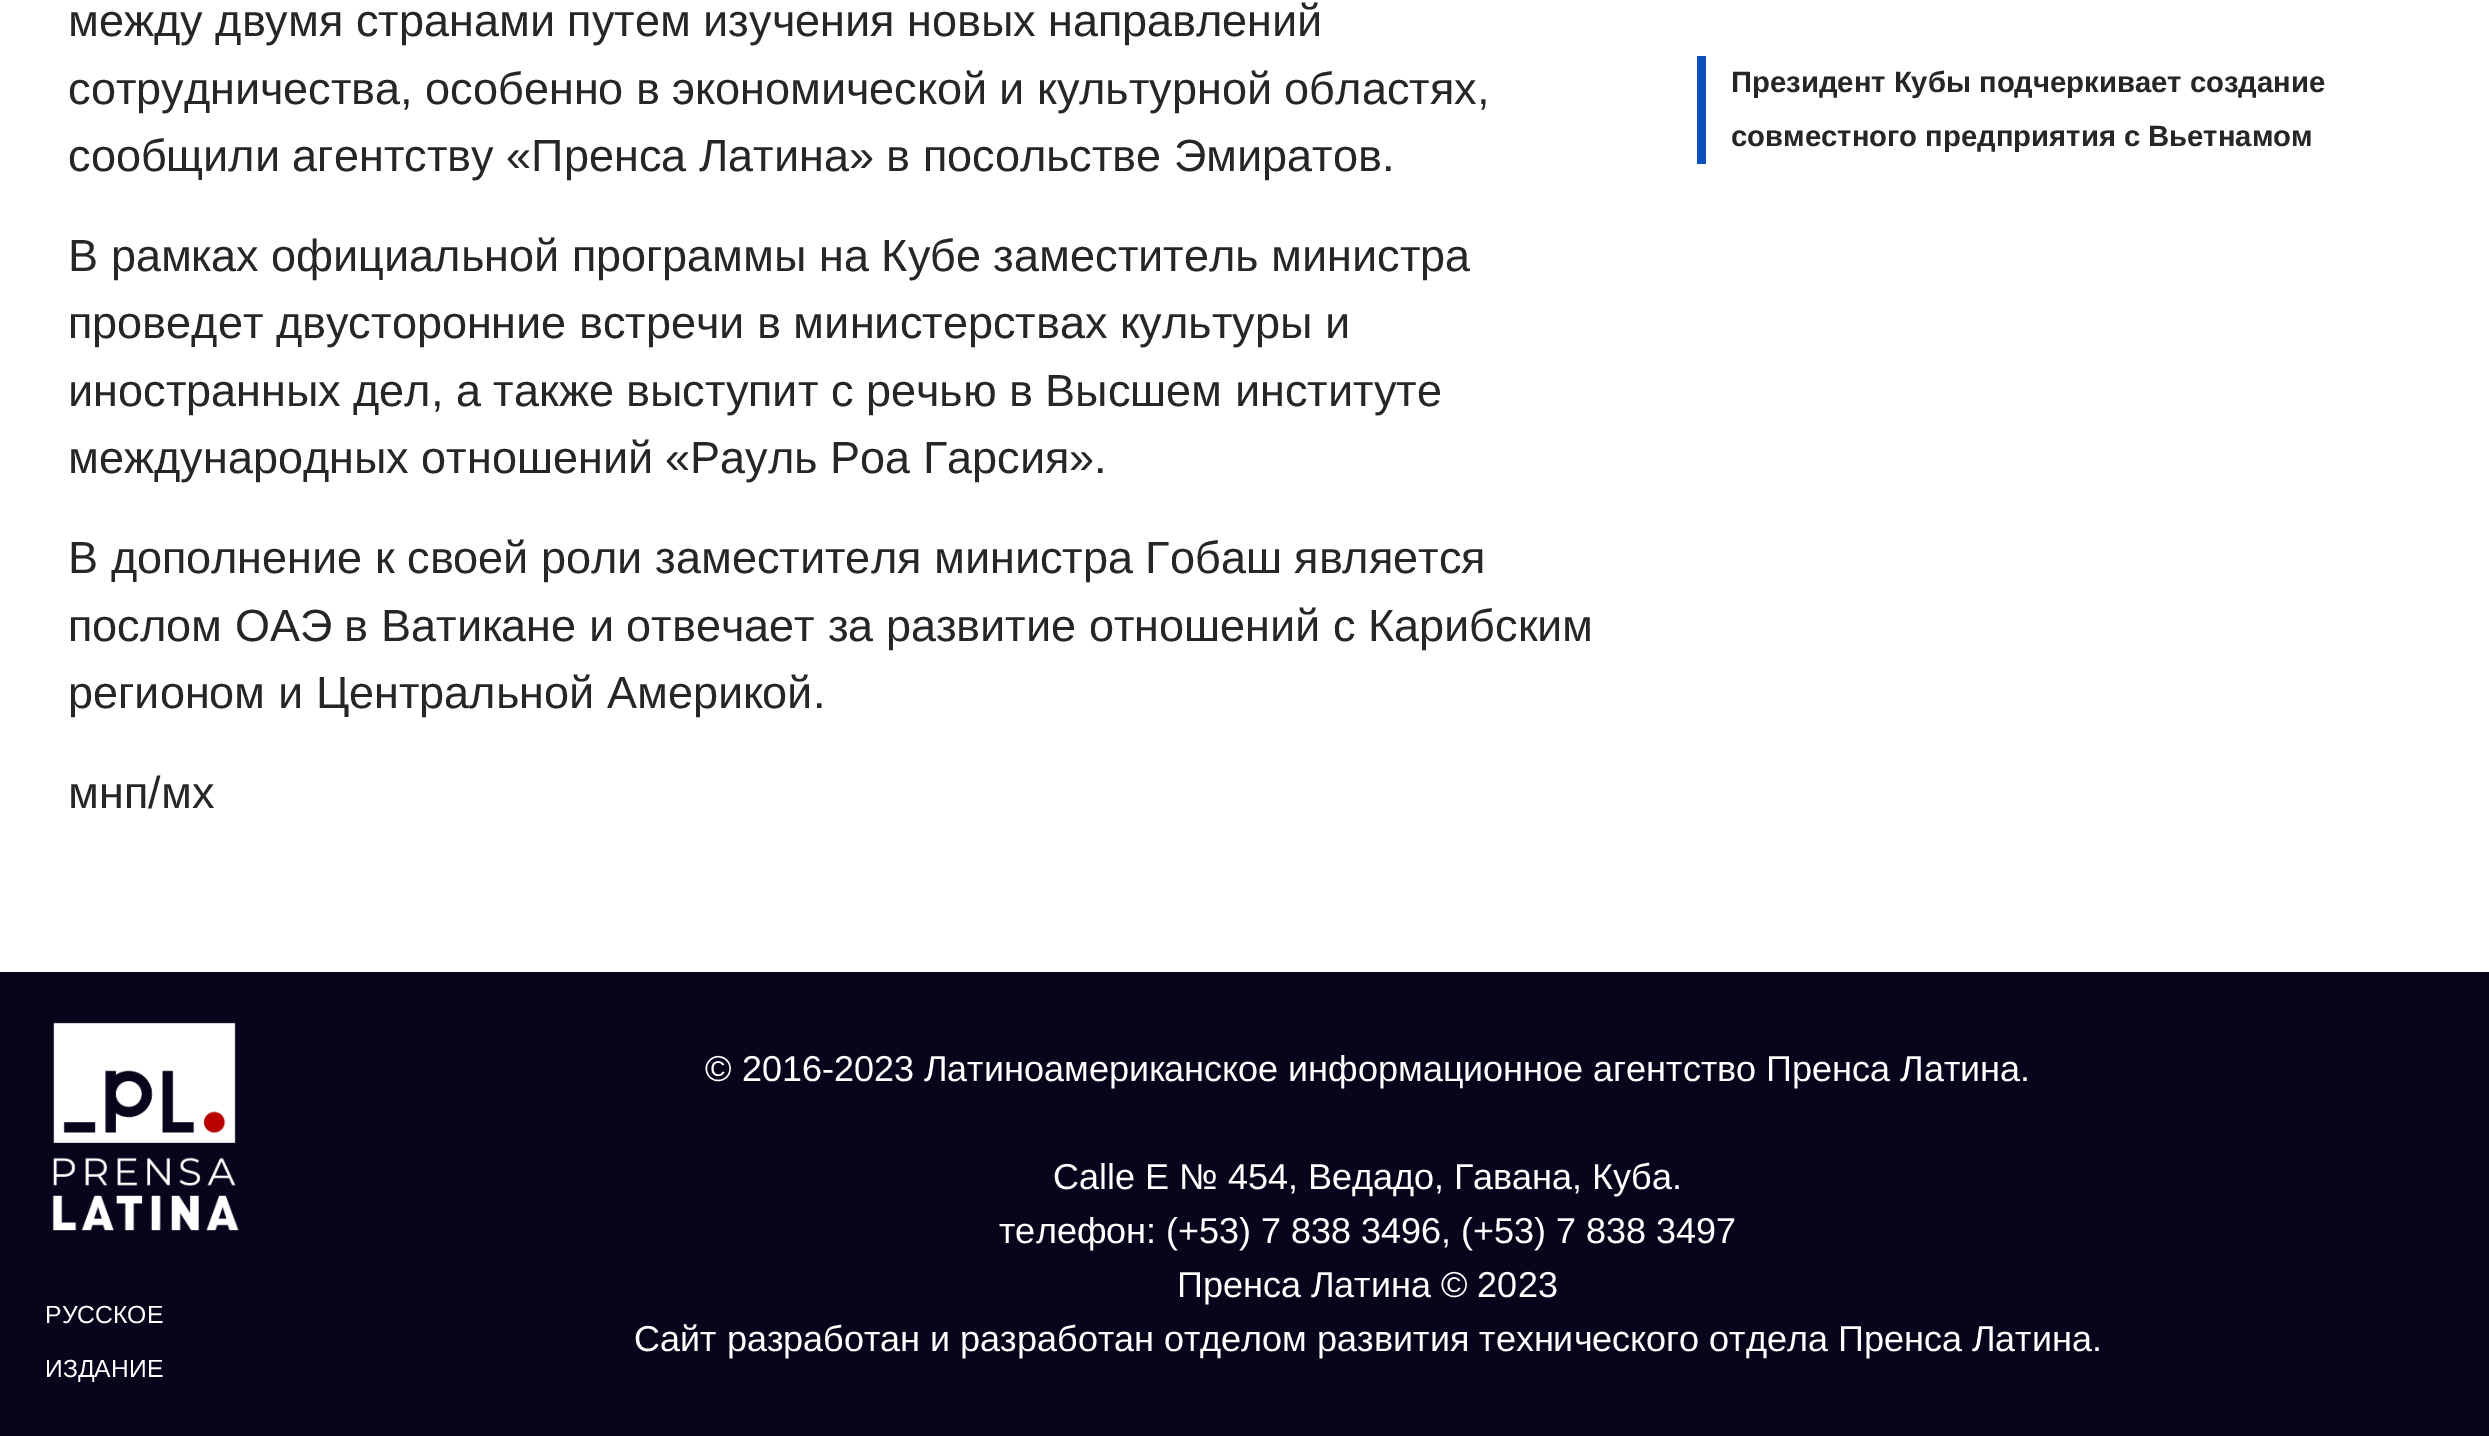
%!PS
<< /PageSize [2489 1436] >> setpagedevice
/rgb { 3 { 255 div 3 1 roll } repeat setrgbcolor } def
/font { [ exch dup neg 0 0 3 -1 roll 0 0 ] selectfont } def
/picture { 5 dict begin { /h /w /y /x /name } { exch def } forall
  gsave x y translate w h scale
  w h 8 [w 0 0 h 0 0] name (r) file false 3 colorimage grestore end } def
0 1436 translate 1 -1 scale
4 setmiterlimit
255 255 255 rgb
0 0 2489 1436 rectfill
10 80 190 rgb
1697 56 9 108 rectfill
9 4 27 rgb
0 972 2489 464 rectfill
(img/1.rgb) 52 1022 187 209 picture
/LiberationSans-Regular 45 font
38 38 38 rgb
[
  [(между двумя странами путем изучения новых направлений) 68 36]
  [(сотрудничества, особенно в экономической и культурной областях,) 68 104]
  [(сообщили агентству «Пренса Латина» в посольстве Эмиратов.) 68 171]
  [(В рамках официальной программы на Кубе заместитель министра) 68 271]
  [(проведет двусторонние встречи в министерствах культуры и) 68 338]
  [(иностранных дел, а также выступит с речью в Высшем институте) 68 406]
  [(международных отношений «Рауль Роа Гарсия».) 68 473]
  [(В дополнение к своей роли заместителя министра Гобаш является) 68 573]
  [(послом ОАЭ в Ватикане и отвечает за развитие отношений с Карибским) 68 641]
  [(регионом и Центральной Америкой.) 68 708]
  [(мнп/мх) 68 808]
] { aload pop moveto show } forall
/LiberationSans-Bold 29.25 font
1731 92 moveto (Президент Кубы подчеркивает создание) show
1731 146 moveto (совместного предприятия с Вьетнамом) show
/LiberationSans-Regular 24.75 font
255 255 255 rgb
45 1323 moveto (РУССКОЕ) show
45 1377 moveto (ИЗДАНИЕ) show
/LiberationSans-Regular 36 font
[
  [(© 2016-2023 Латиноамериканское информационное агентство Пренса Латина.) 705 1081]
  [(Calle E № 454, Ведадо, Гавана, Куба.) 1053 1189]
  [(телефон: \(+53\) 7 838 3496, \(+53\) 7 838 3497) 999 1243]
  [(Пренса Латина © 2023) 1177 1297]
  [(Сайт разработан и разработан отделом развития технического отдела Пренса Латина.) 634 1351]
] { aload pop moveto show } forall
showpage
